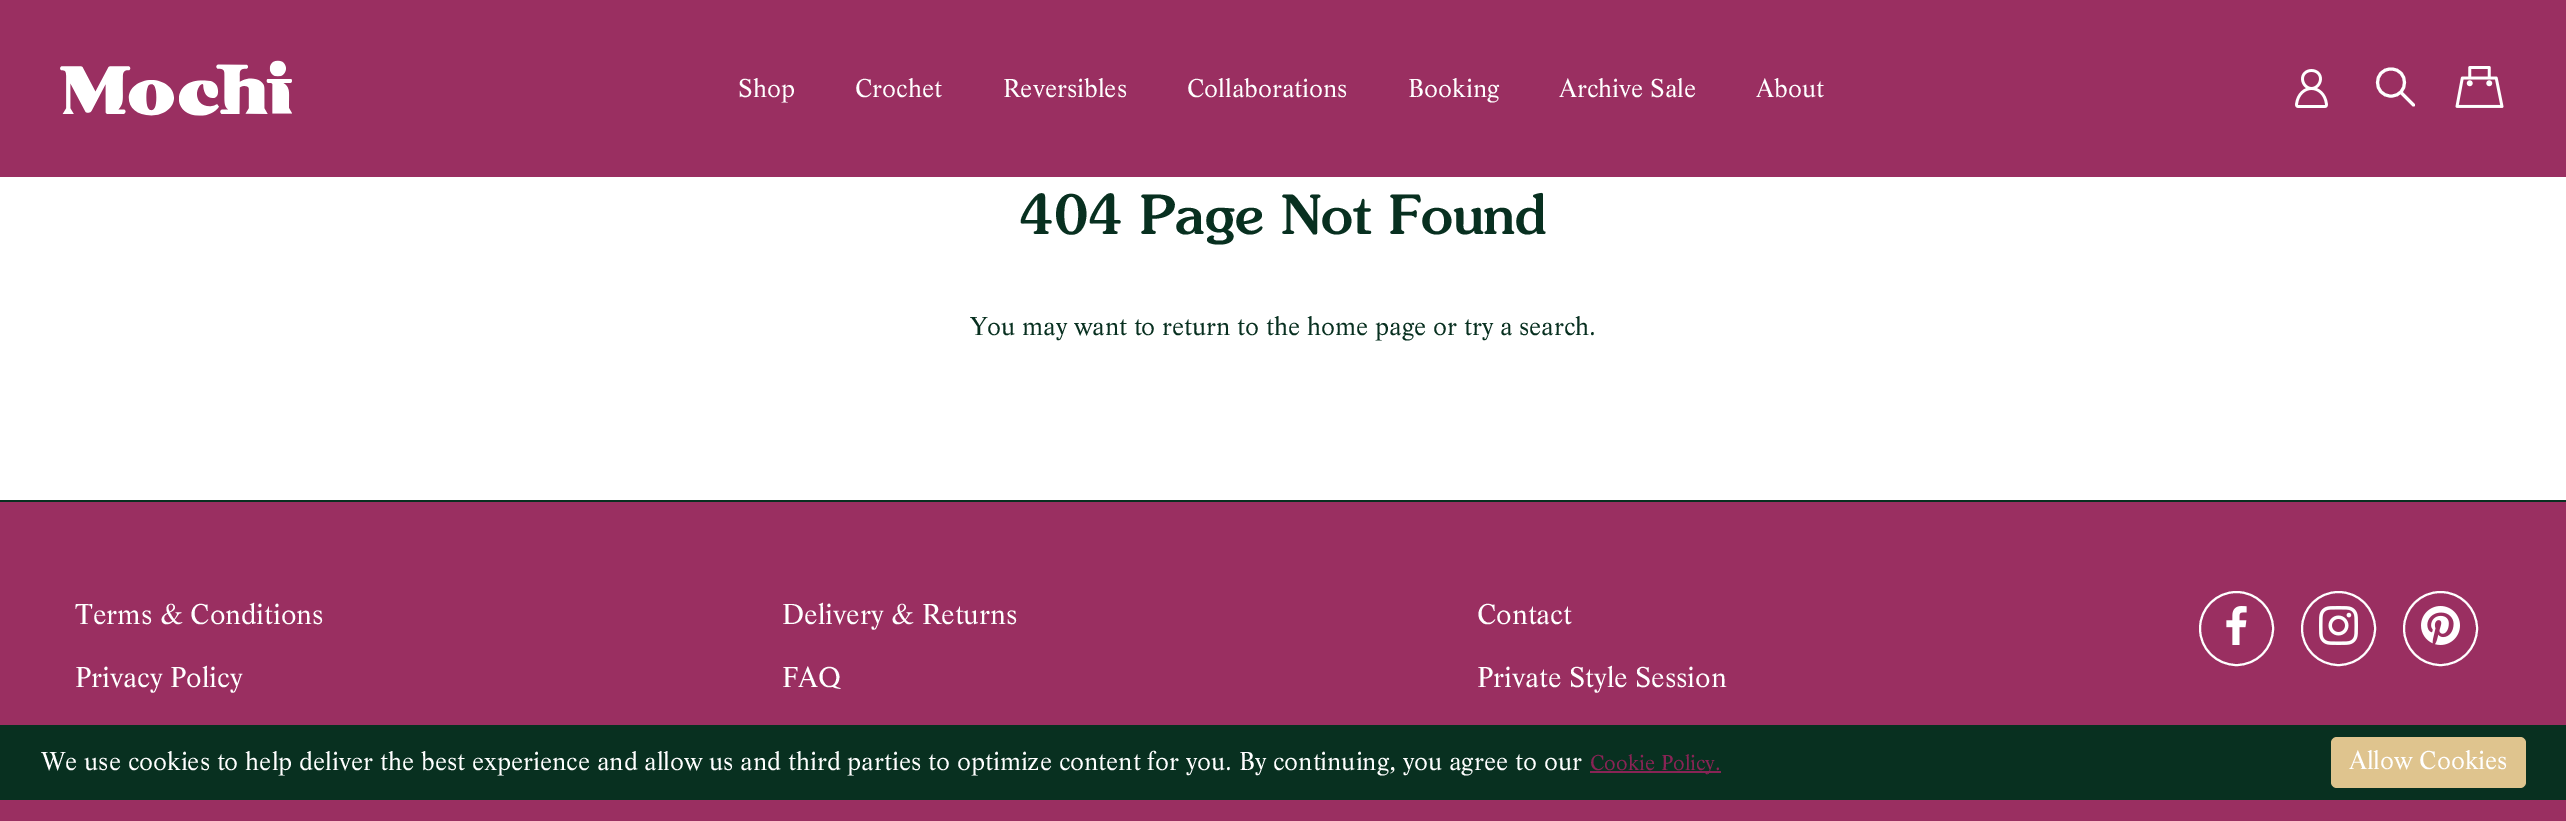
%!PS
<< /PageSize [2566 821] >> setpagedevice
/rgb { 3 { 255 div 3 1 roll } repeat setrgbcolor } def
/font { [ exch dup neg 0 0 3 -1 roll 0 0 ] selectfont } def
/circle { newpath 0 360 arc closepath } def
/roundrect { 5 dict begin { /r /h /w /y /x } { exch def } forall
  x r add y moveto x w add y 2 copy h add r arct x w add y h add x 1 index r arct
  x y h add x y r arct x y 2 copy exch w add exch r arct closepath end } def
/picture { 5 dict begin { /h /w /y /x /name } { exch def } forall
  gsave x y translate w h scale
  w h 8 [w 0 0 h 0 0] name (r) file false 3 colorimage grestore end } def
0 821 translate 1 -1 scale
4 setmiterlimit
255 255 255 rgb
0 0 2566 821 rectfill
154 47 97 rgb
0 0 2566 177 rectfill
(img/1.rgb) 60 60 232 56 picture
(img/2.rgb) 2295 69 33 39 picture
255 255 255 rgb
3 setlinewidth
1 setlinecap
2401 92.5 moveto 2413.5 105 lineto 2391 96 moveto 2409 96 2409 69 2391 69 curveto 2373 69 2373 96 2391 96 curveto closepath stroke
(img/3.rgb) 2455 66 49 42 picture
154 47 97 rgb
0 502 2566 319 rectfill
8 48 32 rgb
0 500 2566 2 rectfill
255 255 255 rgb
2 setlinewidth
0 setlinecap
2236.5 628.5 36.5 circle stroke
(img/4.rgb) 2226 606 21 39 picture
2338.5 628.5 36.5 circle stroke
(img/5.rgb) 2319 606 39 39 picture
2440.5 628.5 36.5 circle stroke
(img/6.rgb) 2421 606 39 39 picture
8 48 32 rgb
0 725 2566 75 rectfill
136 36 85 rgb
1590 771 131 2 rectfill
223 196 142 rgb
2331 737 195 51 6 roundrect fill
/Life-Regular 27 font
255 255 255 rgb
[
  [(Shop) 738 97]
  [(Crochet) 855 97]
  [(Reversibles) 1003 97]
  [(Collaborations) 1187 97]
  [(Booking) 1408 97]
  [(Archive Sale) 1559 97]
  [(About) 1756 97]
] { aload pop moveto show } forall
/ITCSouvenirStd-Medium 54 font
8 48 32 rgb
1019 234 moveto (404 Page Not Found) show
/Life-Regular 27 font
970 335 moveto (You may want to return to the home page or try a search.) show
/Life-Regular 30 font
255 255 255 rgb
[
  [(Terms & Conditions) 75 624]
  [(Privacy Policy) 75 687]
  [(Delivery & Returns) 782 624]
  [(FAQ) 782 687]
  [(Contact) 1477 624]
  [(Private Style Session) 1477 687]
] { aload pop moveto show } forall
/Life-Regular 27 font
41 770 moveto (We use cookies to help deliver the best experience and allow us and third parties to optimize content for you. By continuing, you agree to our) show
/Life-Regular 22.5 font
136 36 85 rgb
1590 770 moveto (Cookie Policy.) show
/Life-Regular 27 font
255 255 255 rgb
2349 769 moveto (Allow Cookies) show
showpage
